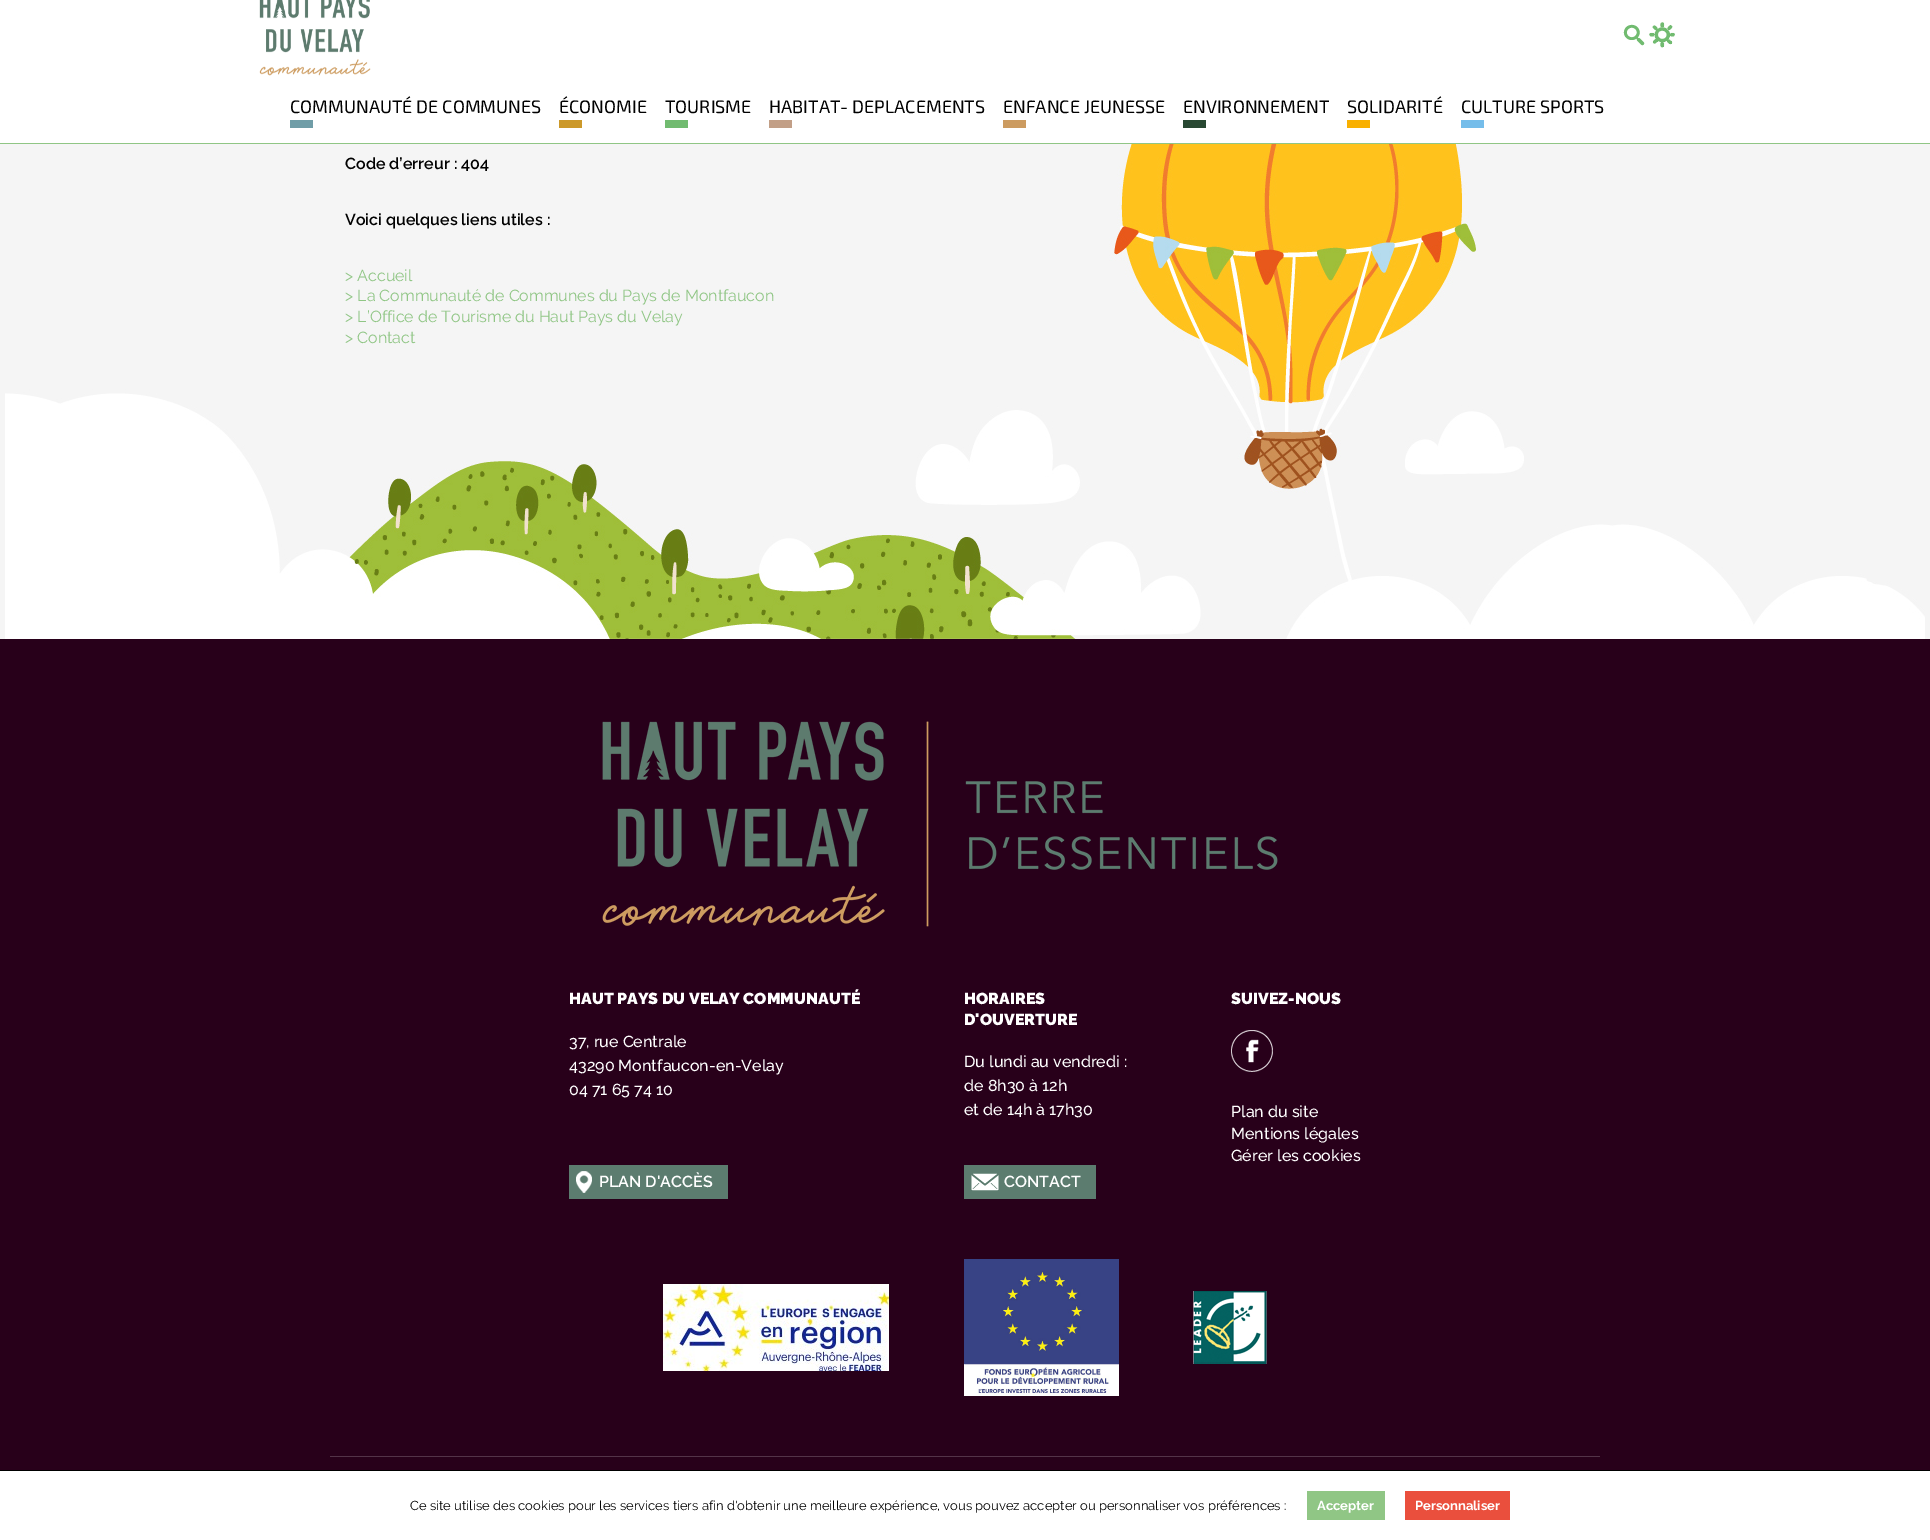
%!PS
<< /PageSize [1930 1540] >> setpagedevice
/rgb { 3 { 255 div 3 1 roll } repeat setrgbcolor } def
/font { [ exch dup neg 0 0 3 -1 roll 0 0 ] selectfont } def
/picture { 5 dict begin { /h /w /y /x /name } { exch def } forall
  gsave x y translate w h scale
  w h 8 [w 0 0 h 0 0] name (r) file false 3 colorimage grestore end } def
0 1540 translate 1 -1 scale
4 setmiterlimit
245 245 245 rgb
0 0 1930 1540 rectfill
255 255 255 rgb
0 0 1930 143 rectfill
144 198 133 rgb
0 143 1930 1 rectfill
(img/1.rgb) 1623 24 22 22 picture
(img/2.rgb) 1649 22 26 26 picture
(img/3.rgb) 259 0 112 76 picture
[
  [290 120 23 8 112 157 167]
  [559 120 23 8 204 153 42]
  [665 120 23 8 113 187 112]
  [769 120 23 8 194 159 135]
  [1003 120 23 8 204 155 96]
  [1183 120 23 8 40 72 50]
  [1347 120 23 8 249 176 0]
  [1461 120 23 8 117 189 234]
] { aload pop rgb rectfill } forall
(img/4.rgb) 5 144 1920 495 picture
40 0 26 rgb
0 639 1930 831 rectfill
(img/5.rgb) 602 721 676 206 picture
92 124 111 rgb
569 1165 159 34 rectfill
(img/6.rgb) 576 1171 16 22 picture
964 1165 132 34 rectfill
(img/7.rgb) 971 1173 28 18 picture
(img/8.rgb) 1231 1030 42 42 picture
(img/9.rgb) 663 1284 226 87 picture
(img/10.rgb) 964 1259 155 137 picture
(img/11.rgb) 1193 1291 74 73 picture
[
  [330 1456 1270 1 83 51 72]
  [0 1471 1930 69 255 255 255]
  [0 1470 1930 1 0 0 0]
  [1307 1491 78 29 144 198 133]
  [1405 1491 105 29 234 79 61]
] { aload pop rgb rectfill } forall
/Exo2-Regular 18 font
1 1 1 rgb
[
  [(COMMUNAUTÉ DE COMMUNES) 290 113]
  [(ÉCONOMIE) 559 113]
  [(TOURISME) 665 113]
  [(HABITAT- DEPLACEMENTS) 769 113]
  [(ENFANCE JEUNESSE) 1003 113]
  [(ENVIRONNEMENT) 1183 113]
  [(SOLIDARITÉ) 1347 113]
  [(CULTURE SPORTS) 1461 113]
] { aload pop moveto show } forall
/Raleway-SemiBold 16 font
345 169 moveto (Code d’erreur : 404) show
345 225 moveto (Voici quelques liens utiles :) show
/Raleway-Regular 16 font
144 198 133 rgb
[
  [(> Accueil) 345 281]
  [(> La Communauté de Communes du Pays de Montfaucon) 345 301]
  [(> L’Office de Tourisme du Haut Pays du Velay) 345 322]
  [(> Contact) 345 343]
] { aload pop moveto show } forall
/Raleway-Black 16 font
255 255 255 rgb
569 1004 moveto (HAUT PAYS DU VELAY COMMUNAUTÉ) show
/Raleway-Medium 16 font
[
  [(37, rue Centrale) 569 1047]
  [(43290 Montfaucon-en-Velay) 569 1071]
  [(04 71 65 74 10) 569 1095]
] { aload pop moveto show } forall
/Raleway-SemiBold 16 font
599 1187 moveto (PLAN D'ACCÈS) show
/Raleway-Black 16 font
964 1004 moveto (HORAIRES) show
964 1025 moveto (D'OUVERTURE) show
/Raleway-Medium 16 font
[
  [(Du lundi au vendredi :) 964 1067]
  [(de 8h30 à 12h) 964 1091]
  [(et de 14h à 17h30) 964 1115]
] { aload pop moveto show } forall
/Raleway-SemiBold 16 font
1004 1187 moveto (CONTACT) show
/Raleway-Black 16 font
1231 1004 moveto (SUIVEZ-NOUS) show
/Raleway-Medium 16 font
[
  [(Plan du site) 1231 1117]
  [(Mentions légales) 1231 1139]
  [(Gérer les cookies) 1231 1161]
] { aload pop moveto show } forall
/Raleway-Regular 13 font
1 1 1 rgb
410 1510 moveto (Ce site utilise des cookies pour les services tiers afin d'obtenir une meilleure expérience, vous pouvez accepter ou personnaliser vos préférences :) show
/Raleway-Bold 13 font
255 255 255 rgb
1317 1510 moveto (Accepter) show
1415 1510 moveto (Personnaliser) show
showpage
